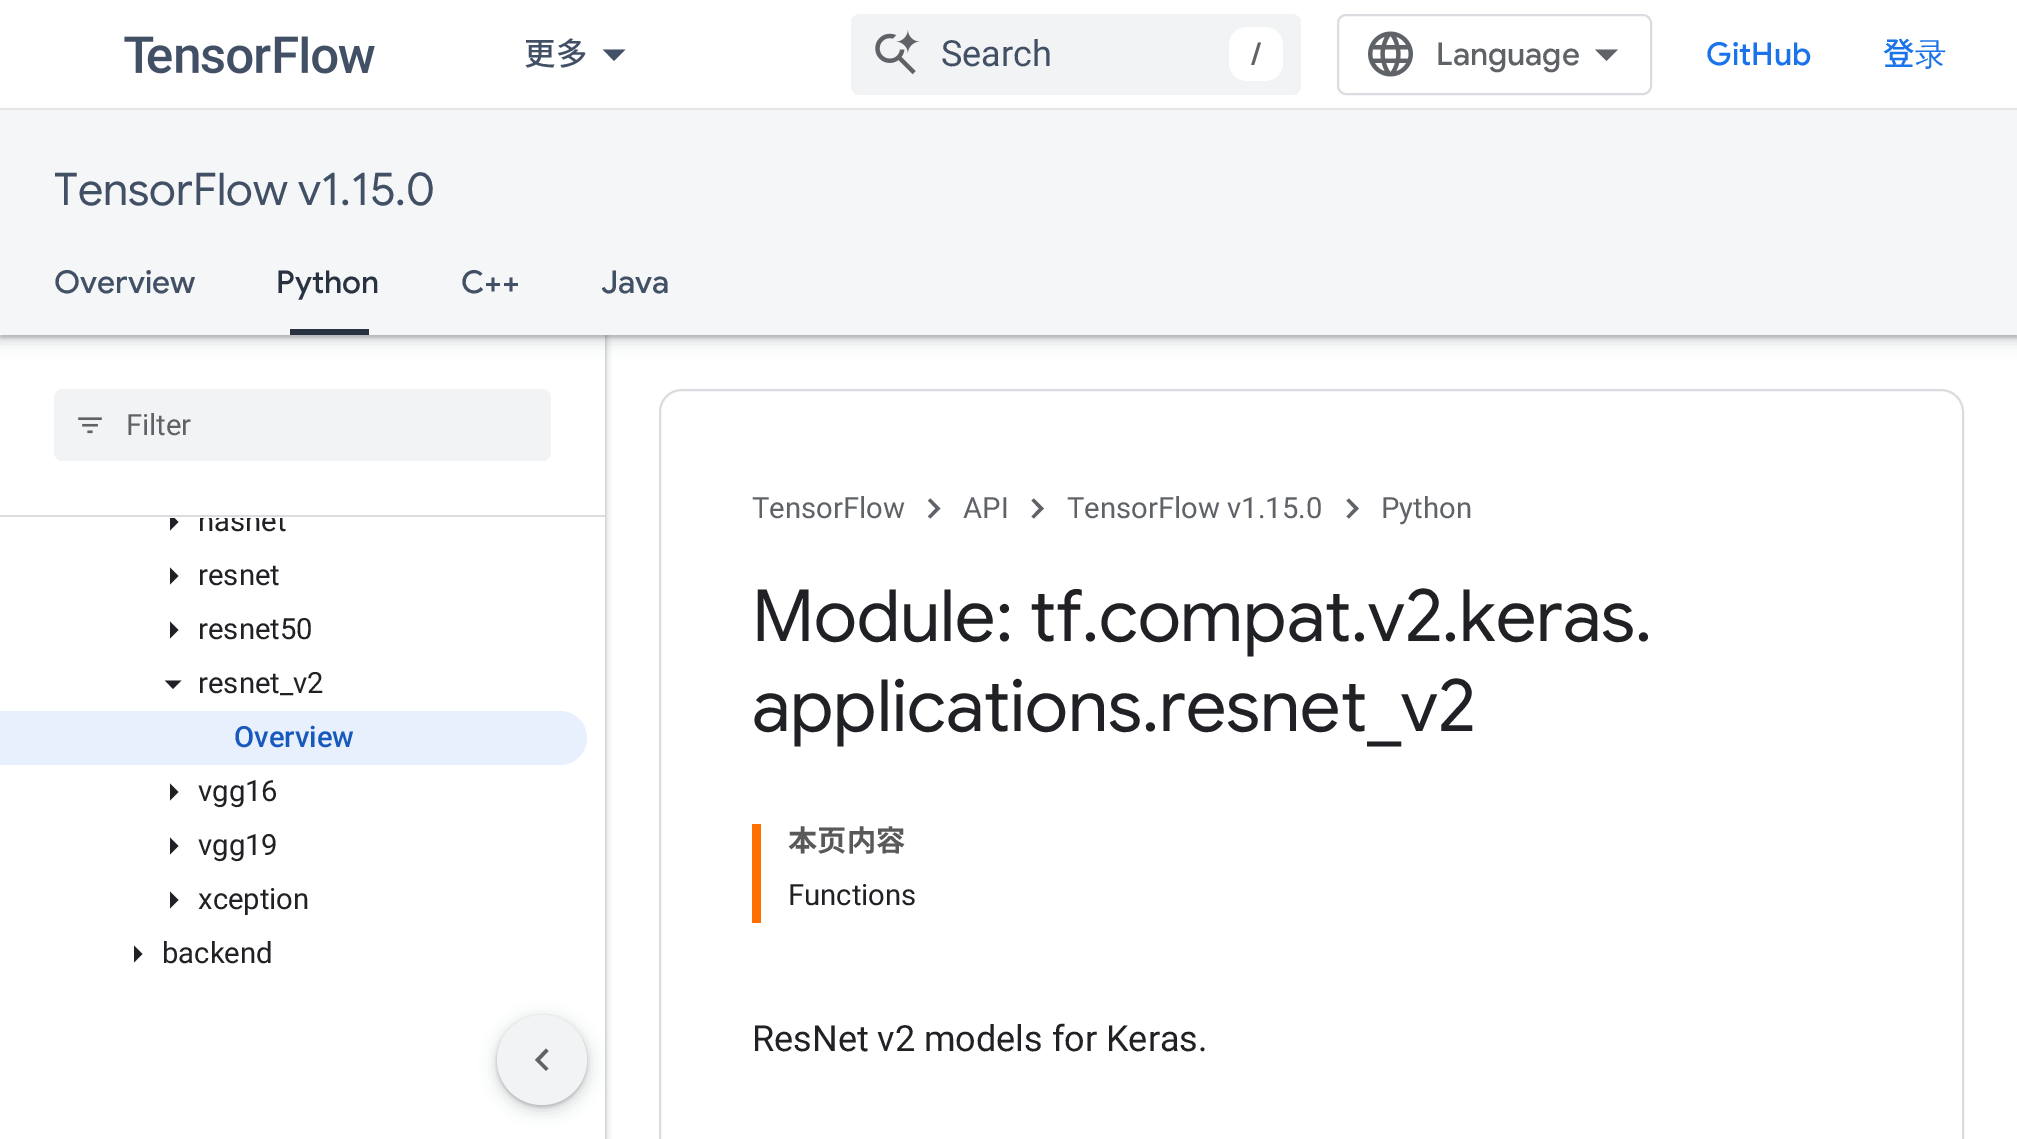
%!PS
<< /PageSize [2017 1139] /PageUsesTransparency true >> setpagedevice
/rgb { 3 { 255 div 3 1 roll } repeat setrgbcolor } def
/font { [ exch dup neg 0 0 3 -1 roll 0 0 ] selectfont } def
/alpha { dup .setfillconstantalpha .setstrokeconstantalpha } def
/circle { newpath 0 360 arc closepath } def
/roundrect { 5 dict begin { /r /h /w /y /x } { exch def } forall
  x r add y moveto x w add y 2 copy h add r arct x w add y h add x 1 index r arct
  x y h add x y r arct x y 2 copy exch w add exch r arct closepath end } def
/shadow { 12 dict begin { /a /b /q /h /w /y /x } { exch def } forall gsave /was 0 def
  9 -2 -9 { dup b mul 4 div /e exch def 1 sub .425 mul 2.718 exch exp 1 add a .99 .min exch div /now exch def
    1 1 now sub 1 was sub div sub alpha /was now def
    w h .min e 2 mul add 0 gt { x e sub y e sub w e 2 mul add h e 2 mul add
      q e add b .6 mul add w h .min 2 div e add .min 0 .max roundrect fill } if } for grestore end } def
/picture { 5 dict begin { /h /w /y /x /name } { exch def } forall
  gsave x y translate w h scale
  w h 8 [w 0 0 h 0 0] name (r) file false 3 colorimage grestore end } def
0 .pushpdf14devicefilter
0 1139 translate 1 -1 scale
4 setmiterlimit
255 255 255 rgb
0 0 2017 1139 rectfill
gsave
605 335 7 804 rectclip
60 64 67 rgb
-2 0 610 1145 0 3.5 0.15 shadow
grestore
gsave
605 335 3 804 rectclip
60 64 67 rgb
0 2 605 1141 0 2 0.3 shadow
grestore
60 64 67 rgb
-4 110 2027 234 0 7 0.15 shadow
0 113 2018 225 0 2 0.3 shadow
255 255 255 rgb
0 0 2017 108 rectfill
230 230 230 rgb
0 108 2017 2 rectfill
(img/1.rgb) 124 36 251 38 picture
66 80 102 rgb
603 49.5 moveto 625.5 49.5 lineto 614 61 lineto closepath fill
241 243 244 rgb
851 14 450 81 9 roundrect fill
(img/2.rgb) 875 29 45 46 picture
255 255 255 rgb
1229 27 54 54 18 roundrect fill
218 220 224 rgb
2 setlinewidth
1338 15 313 79 8 roundrect stroke
(img/3.rgb) 1368 31 45 46 picture
95 99 104 rgb
1606.5 61 moveto 1595 49.5 lineto 1618 49.5 lineto closepath fill
245 246 247 rgb
0 110 2017 225 rectfill
41 50 65 rgb
290 329 79 6 rectfill
241 243 244 rgb
54 389 497 72 9 roundrect fill
(img/4.rgb) 78 417 24 17 picture
32 33 36 rgb
170 530.5 moveto 170 513.5 lineto 178.5 522 lineto closepath fill
170 584.5 moveto 170 567.5 lineto 178.5 576 lineto closepath fill
170 638.5 moveto 170 621.5 lineto 178.5 630 lineto closepath fill
165 680.5 moveto 181.5 680.5 lineto 173 689 lineto closepath fill
232 240 254 rgb
0 711 moveto 560 711 lineto 575 711 587 723 587 738 curveto 587 753 575 765 560 765 curveto 0 765 lineto closepath fill
32 33 36 rgb
170 800.5 moveto 170 783.5 lineto 178.5 792 lineto closepath fill
170 854.5 moveto 170 837.5 lineto 178.5 846 lineto closepath fill
170 908.5 moveto 170 891.5 lineto 178.5 900 lineto closepath fill
134 962.5 moveto 134 945.5 lineto 142.5 954 lineto closepath fill
60 64 67 rgb
493 1015 99 99 49.5 7 0.15 shadow
497 1017 90 90 45 2 0.3 shadow
241 243 244 rgb
542 1060 45 circle fill
95 99 104 rgb
548.5 1051 moveto 540 1060 lineto 548.5 1068.5 lineto 546 1071 lineto 535 1060 lineto 546 1048.5 lineto closepath fill
218 220 224 rgb
660 390 1303 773 22 roundrect stroke
95 99 104 rgb
930.5 498.5 moveto 940.5 508.5 lineto 930.5 518.5 lineto 928 516.5 lineto 935.5 508.5 lineto 928 500.5 lineto closepath fill
1034 498.5 moveto 1044 508.5 lineto 1034 518.5 lineto 1031.5 516.5 lineto 1039 508.5 lineto 1031.5 500.5 lineto closepath fill
1349 498.5 moveto 1359 508.5 lineto 1349 518.5 lineto 1346.5 516.5 lineto 1354 508.5 lineto 1346.5 500.5 lineto closepath fill
255 111 0 rgb
752 824 9 99 rectfill
/NotoSansJP-Medium 31.5 font
66 80 102 rgb
524 65 moveto (更多) show
/Roboto-Regular 36 font
941 66 moveto (Search) show
/GoogleSans-Medium 31.5 font
95 99 104 rgb
1251 65 moveto (/) show
1436 65 moveto (Language) show
26 115 232 rgb
1706 65 moveto (GitHub) show
/NotoSansJP-Medium 31.5 font
1883 65 moveto (登) show
/WenQuanYiZenHei-Medium 31.5 font
1915 65 moveto (录) show
/GoogleSans-Regular 45 font
66 80 102 rgb
54 205 moveto (TensorFlow v1.15.0) show
/GoogleSans-Medium 31.5 font
54 293 moveto (Overview) show
41 50 65 rgb
276 293 moveto (Python) show
66 80 102 rgb
461 293 moveto (C++) show
601 293 moveto (Java) show
/Roboto-Regular 29.25 font
95 99 104 rgb
126 435 moveto (Filter) show
32 33 36 rgb
198 531 moveto (nasnet) show
255 255 255 rgb
170 511 116 7 rectfill
218 220 224 rgb
0 515 605 2 rectfill
32 33 36 rgb
[
  [(resnet) 198 585]
  [(resnet50) 198 639]
  [(resnet_v2) 198 693]
] { aload pop moveto show } forall
/Roboto-Medium 29.25 font
24 90 188 rgb
234 747 moveto (Overview) show
/Roboto-Regular 29.25 font
32 33 36 rgb
[
  [(vgg16) 198 801]
  [(vgg19) 198 855]
  [(xception) 198 909]
  [(backend) 162 963]
] { aload pop moveto show } forall
95 99 104 rgb
[
  [(TensorFlow) 752 518]
  [(API) 963 518]
  [(TensorFlow v1.15.0) 1067 518]
  [(Python) 1381 518]
] { aload pop moveto show } forall
/GoogleSans-Regular 72 font
32 33 36 rgb
752 641 moveto (Module: tf.compat.v2.keras.) show
752 731 moveto (applications.resnet_v2) show
/NotoSansJP-Bold 29.25 font
89 89 89 rgb
788 851 moveto (本页内容) show
/Roboto-Regular 29.25 font
32 33 36 rgb
788 905 moveto (Functions) show
/Roboto-Regular 36 font
752 1051 moveto (ResNet v2 models for Keras.) show
.poppdf14devicefilter showpage
